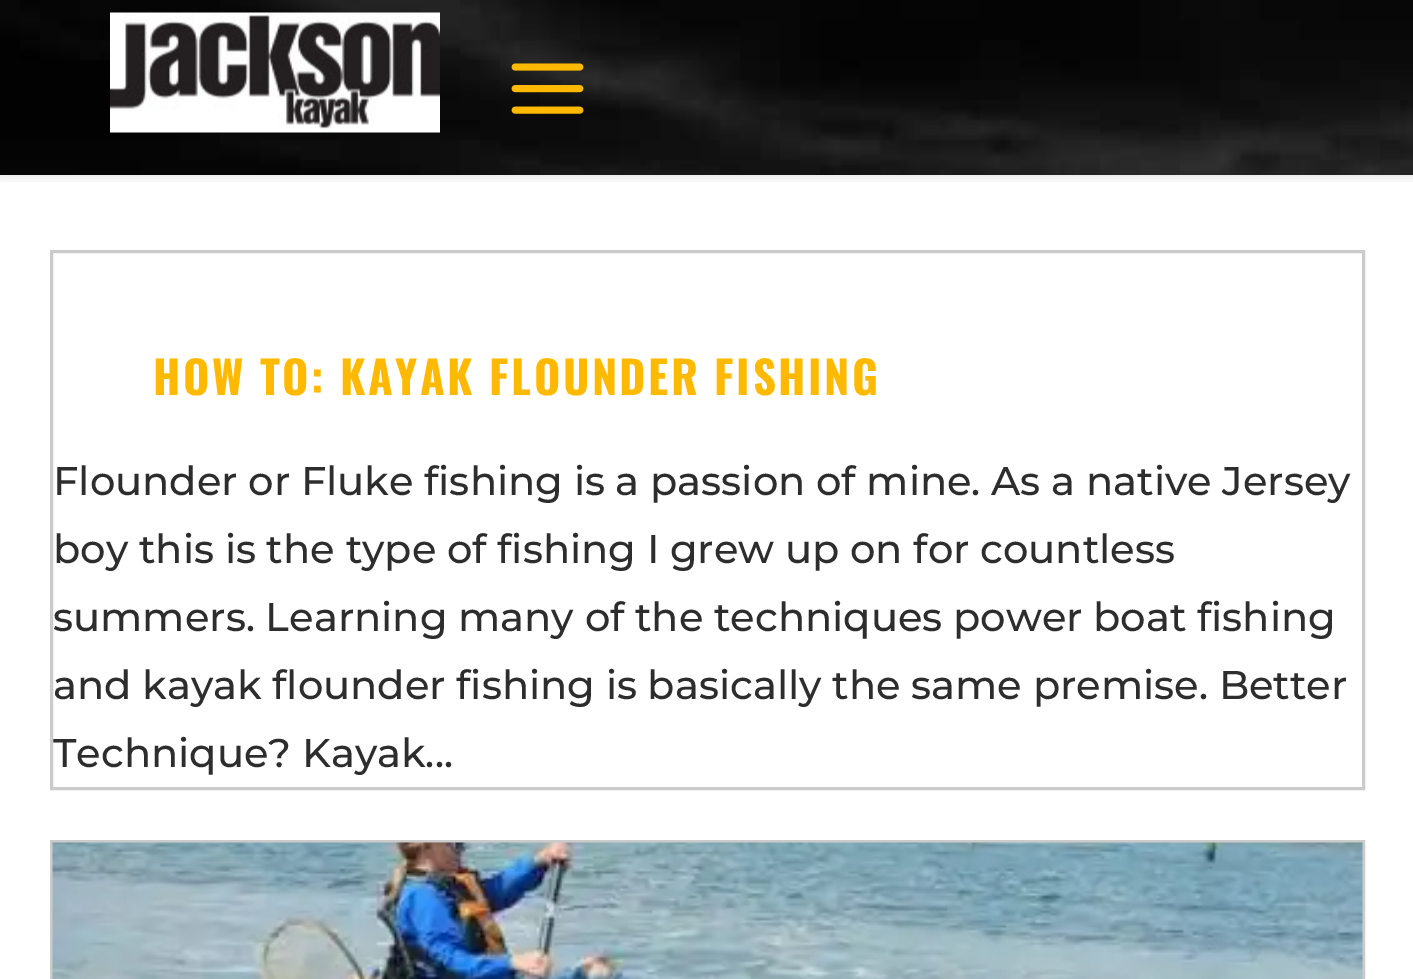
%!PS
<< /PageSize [1413 979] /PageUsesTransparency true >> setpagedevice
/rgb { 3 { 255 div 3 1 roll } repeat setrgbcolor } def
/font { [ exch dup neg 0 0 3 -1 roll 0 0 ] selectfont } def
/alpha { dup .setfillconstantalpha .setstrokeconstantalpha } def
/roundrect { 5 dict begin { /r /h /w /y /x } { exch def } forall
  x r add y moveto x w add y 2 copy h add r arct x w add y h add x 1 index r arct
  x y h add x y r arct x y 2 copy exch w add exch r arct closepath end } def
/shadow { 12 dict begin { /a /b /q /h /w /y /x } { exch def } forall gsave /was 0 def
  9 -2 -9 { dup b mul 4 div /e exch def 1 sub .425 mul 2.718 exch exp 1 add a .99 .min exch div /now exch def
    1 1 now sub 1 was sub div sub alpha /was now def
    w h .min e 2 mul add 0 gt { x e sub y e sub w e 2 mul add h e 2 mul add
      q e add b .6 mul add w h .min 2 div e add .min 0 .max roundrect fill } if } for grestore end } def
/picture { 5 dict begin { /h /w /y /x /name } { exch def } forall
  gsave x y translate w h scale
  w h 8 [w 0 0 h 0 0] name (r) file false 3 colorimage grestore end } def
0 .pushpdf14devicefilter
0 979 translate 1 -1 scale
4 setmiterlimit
255 255 255 rgb
0 0 1413 979 rectfill
(img/1.rgb) 0 0 1413 175 picture
gsave
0 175 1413 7 rectclip
0 0 0 rgb
0 3 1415 175 0 5 0.1 shadow
grestore
(img/2.rgb) 110 12 330 121 picture
(img/3.rgb) 511 63 73 51 picture
203 203 203 rgb
3 setlinewidth
51.5 251.5 1312 537 rectstroke
51.5 841.5 1312 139 rectstroke
(img/4.rgb) 52 842 1311 137 picture
/Oswald-Bold 45 font
255 185 0 rgb
153 395 moveto 2.5 0 (HOW TO: KAYAK FLOUNDER FISHING) ashow
/Montserrat-Thin 40 font
45 45 45 rgb
[
  [(Flounder or Fluke fishing is a passion of mine. As a native Jersey) 53 495]
  [(boy this is the type of fishing I grew up on for countless) 53 563]
  [(summers. Learning many of the techniques power boat fishing) 53 631]
  [(and kayak flounder fishing is basically the same premise. Better) 53 699]
  [(Technique? Kayak...) 53 767]
] { aload pop moveto show } forall
.poppdf14devicefilter showpage
